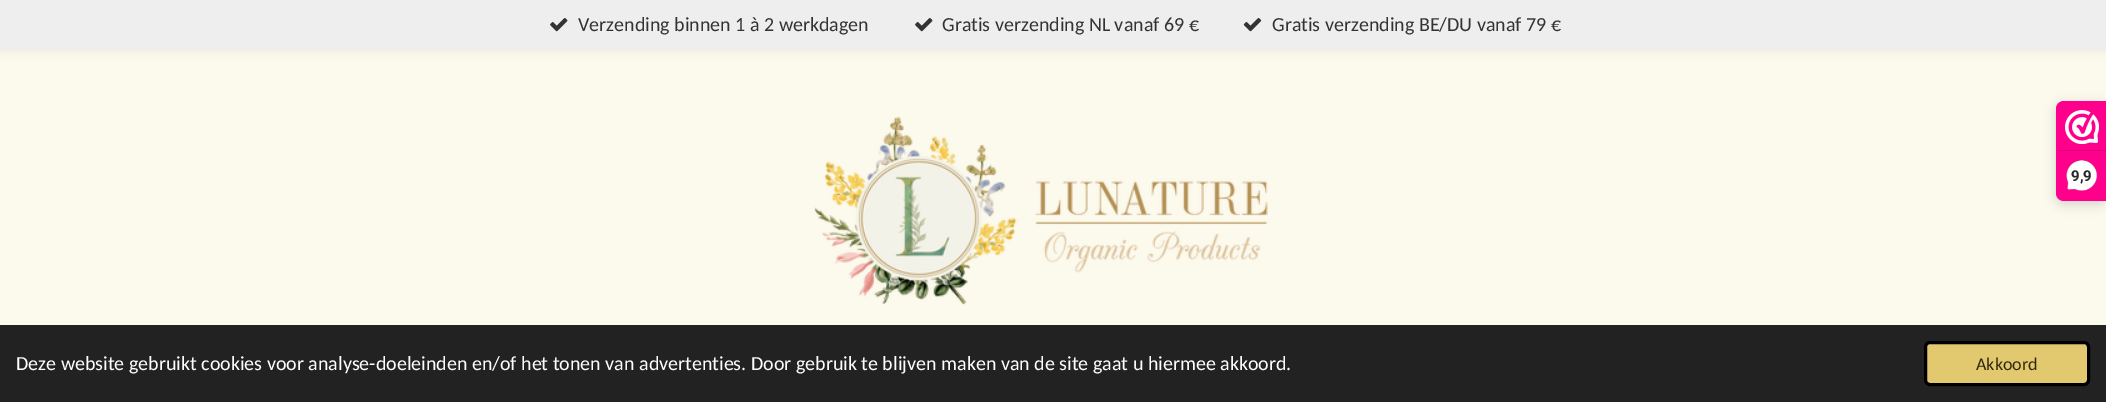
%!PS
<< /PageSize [2106 402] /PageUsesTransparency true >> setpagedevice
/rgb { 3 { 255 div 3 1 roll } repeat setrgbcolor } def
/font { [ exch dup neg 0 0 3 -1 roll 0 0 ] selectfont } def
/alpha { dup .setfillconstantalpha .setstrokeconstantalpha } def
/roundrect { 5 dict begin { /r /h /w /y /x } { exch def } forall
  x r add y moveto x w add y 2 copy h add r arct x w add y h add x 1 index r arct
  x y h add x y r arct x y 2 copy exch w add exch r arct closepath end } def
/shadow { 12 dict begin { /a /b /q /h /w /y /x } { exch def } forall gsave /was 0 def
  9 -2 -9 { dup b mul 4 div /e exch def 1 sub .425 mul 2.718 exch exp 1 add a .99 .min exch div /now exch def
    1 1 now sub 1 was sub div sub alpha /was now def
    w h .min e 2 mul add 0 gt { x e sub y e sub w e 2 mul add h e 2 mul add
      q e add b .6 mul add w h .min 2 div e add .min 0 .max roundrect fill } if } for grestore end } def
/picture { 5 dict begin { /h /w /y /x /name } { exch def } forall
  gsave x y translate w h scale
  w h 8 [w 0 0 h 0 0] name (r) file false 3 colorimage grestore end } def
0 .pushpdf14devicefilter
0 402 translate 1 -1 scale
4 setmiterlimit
252 249 237 rgb
0 0 2106 402 rectfill
0 0 0 rgb
0 -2 2106 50 0 6 0.1 shadow
238 238 238 rgb
0 0 2106 50 rectfill
(img/1.rgb) 550 18 18 14 picture
(img/1.rgb) 915 18 18 14 picture
(img/2.rgb) 1243 18 19 14 picture
(img/3.rgb) 814 116 454 189 picture
0 0 0 rgb
2056 104 50 100 8 6 0.15 shadow
254 0 140 rgb
2064 101 moveto 2106 101 lineto 2106 201 lineto 2064 201 lineto 2059.5 201 2056 197.5 2056 193 curveto 2056 109 lineto 2056 104.5 2059.5 101 2064 101 curveto closepath fill
(img/4.rgb) 2065 110 34 34 picture
216 0 119 rgb
2058 150 48 1 rectfill
(img/5.rgb) 2066 160 32 31 picture
34 34 34 rgb
0 325 2106 77 rectfill
226 200 111 rgb
1925.5 342.5 163 42 4.5 roundrect gsave fill grestore
0 0 0 rgb
3 setlinewidth
stroke
/Carlito-Regular 20 font
51 51 51 rgb
[
  [(Verzending binnen 1 à 2 werkdagen) 578 31]
  [(Gratis verzending NL vanaf 69 €) 942 31]
  [(Gratis verzending BE/DU vanaf 79 €) 1272 31]
] { aload pop moveto show } forall
/Roboto-Bold 15 font
39 38 38 rgb
2071 181 moveto (9,9) show
/Carlito-Regular 20 font
255 255 255 rgb
16 370 moveto (Deze website gebruikt cookies voor analyse-doeleinden en/of het tonen van advertenties. Door gebruik te blijven maken van de site gaat u hiermee akkoord.) show
/Carlito-Regular 18 font
47 39 9 rgb
1976 370 moveto (Akkoord) show
.poppdf14devicefilter showpage
